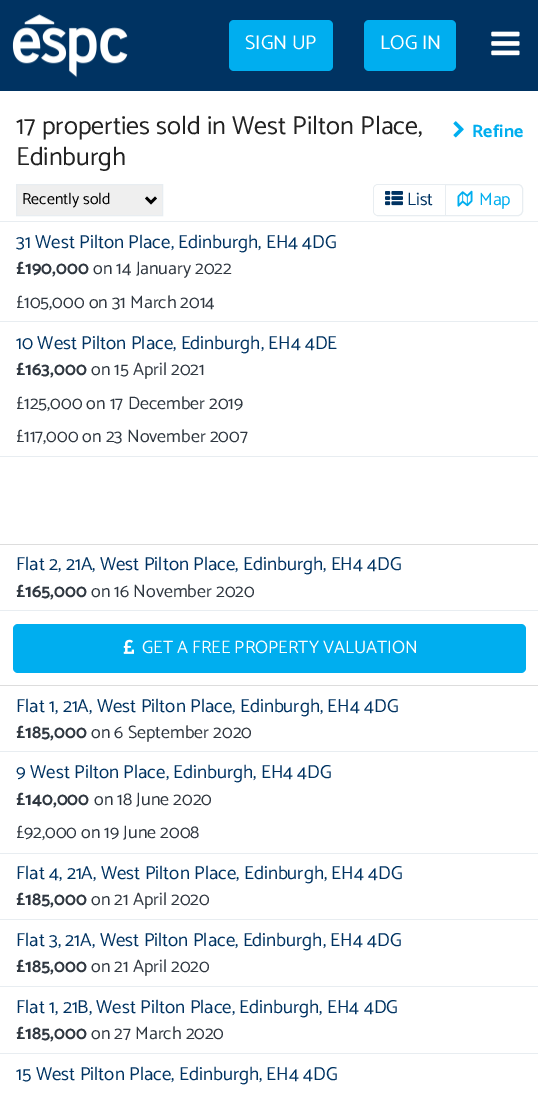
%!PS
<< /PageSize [538 1102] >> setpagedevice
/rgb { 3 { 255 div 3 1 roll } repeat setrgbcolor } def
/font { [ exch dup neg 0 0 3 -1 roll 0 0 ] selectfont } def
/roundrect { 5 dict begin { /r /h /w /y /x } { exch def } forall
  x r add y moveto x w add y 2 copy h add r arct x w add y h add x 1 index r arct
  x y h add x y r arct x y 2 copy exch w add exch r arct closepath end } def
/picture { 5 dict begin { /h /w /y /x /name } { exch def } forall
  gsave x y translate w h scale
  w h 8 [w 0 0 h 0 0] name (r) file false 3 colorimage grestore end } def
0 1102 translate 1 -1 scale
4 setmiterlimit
255 255 255 rgb
0 0 538 1102 rectfill
0 51 98 rgb
0 0 538 91 rectfill
(img/1.rgb) 12 14 116 64 picture
0 174 239 rgb
229 20 104 51 5 roundrect fill
364 20 92 51 5 roundrect fill
(img/2.rgb) 491 31 29 25 picture
(img/3.rgb) 453 121 11 17 picture
239 239 239 rgb
16.5 184.5 moveto 162.5 184.5 lineto 162.5 215.5 lineto 16.5 215.5 lineto closepath gsave fill grestore
232 237 241 rgb
stroke
0 0 0 rgb
2.5 setlinewidth
146 197.5 moveto 151 202.5 lineto 156 197.5 lineto stroke
232 237 241 rgb
1 setlinewidth
373.5 184.5 149 31 4.5 roundrect stroke
255 255 255 rgb
378 185 moveto 446 185 lineto 446 215 lineto 378 215 lineto 376 215 374 213 374 211 curveto 374 189 lineto 374 187 376 185 378 185 curveto closepath fill
232 237 241 rgb
445 185 1 30 rectfill
(img/4.rgb) 385 191 18 15 picture
(img/5.rgb) 457 190 16 17 picture
[
  [0 221 538 1 232 237 241]
  [0 321 538 1 232 237 241]
  [0 456 538 1 232 237 241]
  [0 544 538 1 221 221 221]
  [0 610 538 1 232 237 241]
  [0 685 538 1 221 221 221]
] { aload pop rgb rectfill } forall
0 174 239 rgb
13 624 513 49 5 roundrect fill
(img/6.rgb) 123 639 11 15 picture
[
  [0 751 538 1 232 237 241]
  [0 853 538 1 232 237 241]
  [0 919 538 1 232 237 241]
  [0 986 538 1 232 237 241]
  [0 1053 538 1 232 237 241]
] { aload pop rgb rectfill } forall
/Catamaran-Regular 20 font
255 255 255 rgb
245 49 moveto (SIGN UP) show
380 49 moveto (LOG IN) show
/Catamaran-Regular 26 font
34 34 34 rgb
16 134 moveto (17 properties sold in West Pilton Place,) show
16 165 moveto (Edinburgh) show
/Catamaran-Bold 18 font
0 174 239 rgb
472 137 moveto (Refine) show
/Catamaran-Regular 16 font
0 0 0 rgb
22 204 moveto (Recently sold) show
/Catamaran-Regular 18 font
0 51 98 rgb
407 205 moveto (List) show
0 174 239 rgb
479 205 moveto (Map) show
/Catamaran-Regular 18.9 font
0 51 98 rgb
16 248 moveto (31 West Pilton Place, Edinburgh, EH4 4DG) show
/Catamaran-Bold 18 font
47 55 64 rgb
16 274 moveto (£190,000) show
/Catamaran-Regular 18 font
93 274 moveto (on 14 January 2022) show
16 308 moveto (£105,000 on 31 March 2014) show
/Catamaran-Regular 18.9 font
0 51 98 rgb
16 349 moveto (10 West Pilton Place, Edinburgh, EH4 4DE) show
/Catamaran-Bold 18 font
47 55 64 rgb
16 375 moveto (£163,000) show
/Catamaran-Regular 18 font
[
  [(on 15 April 2021) 91 375]
  [(£125,000 on 17 December 2019) 16 409]
  [(£117,000 on 23 November 2007) 16 442]
] { aload pop moveto show } forall
/Catamaran-Regular 18.9 font
0 51 98 rgb
16 570 moveto (Flat 2, 21A, West Pilton Place, Edinburgh, EH4 4DG) show
/Catamaran-Bold 18 font
47 55 64 rgb
16 597 moveto (£165,000) show
/Catamaran-Regular 18 font
91 597 moveto (on 16 November 2020) show
255 255 255 rgb
142 653 moveto (GET A FREE PROPERTY VALUATION) show
/Catamaran-Regular 18.9 font
0 51 98 rgb
16 712 moveto (Flat 1, 21A, West Pilton Place, Edinburgh, EH4 4DG) show
/Catamaran-Bold 18 font
47 55 64 rgb
16 738 moveto (£185,000) show
/Catamaran-Regular 18 font
91 738 moveto (on 6 September 2020) show
/Catamaran-Regular 18.9 font
0 51 98 rgb
16 778 moveto (9 West Pilton Place, Edinburgh, EH4 4DG) show
/Catamaran-Bold 18 font
47 55 64 rgb
16 805 moveto (£140,000) show
/Catamaran-Regular 18 font
94 805 moveto (on 18 June 2020) show
16 838 moveto (£92,000 on 19 June 2008) show
/Catamaran-Regular 18.9 font
0 51 98 rgb
16 879 moveto (Flat 4, 21A, West Pilton Place, Edinburgh, EH4 4DG) show
/Catamaran-Bold 18 font
47 55 64 rgb
16 905 moveto (£185,000) show
/Catamaran-Regular 18 font
91 905 moveto (on 21 April 2020) show
/Catamaran-Regular 18.9 font
0 51 98 rgb
16 946 moveto (Flat 3, 21A, West Pilton Place, Edinburgh, EH4 4DG) show
/Catamaran-Bold 18 font
47 55 64 rgb
16 972 moveto (£185,000) show
/Catamaran-Regular 18 font
91 972 moveto (on 21 April 2020) show
/Catamaran-Regular 18.9 font
0 51 98 rgb
16 1013 moveto (Flat 1, 21B, West Pilton Place, Edinburgh, EH4 4DG) show
/Catamaran-Bold 18 font
47 55 64 rgb
16 1039 moveto (£185,000) show
/Catamaran-Regular 18 font
91 1039 moveto (on 27 March 2020) show
/Catamaran-Regular 18.9 font
0 51 98 rgb
16 1080 moveto (15 West Pilton Place, Edinburgh, EH4 4DG) show
showpage
